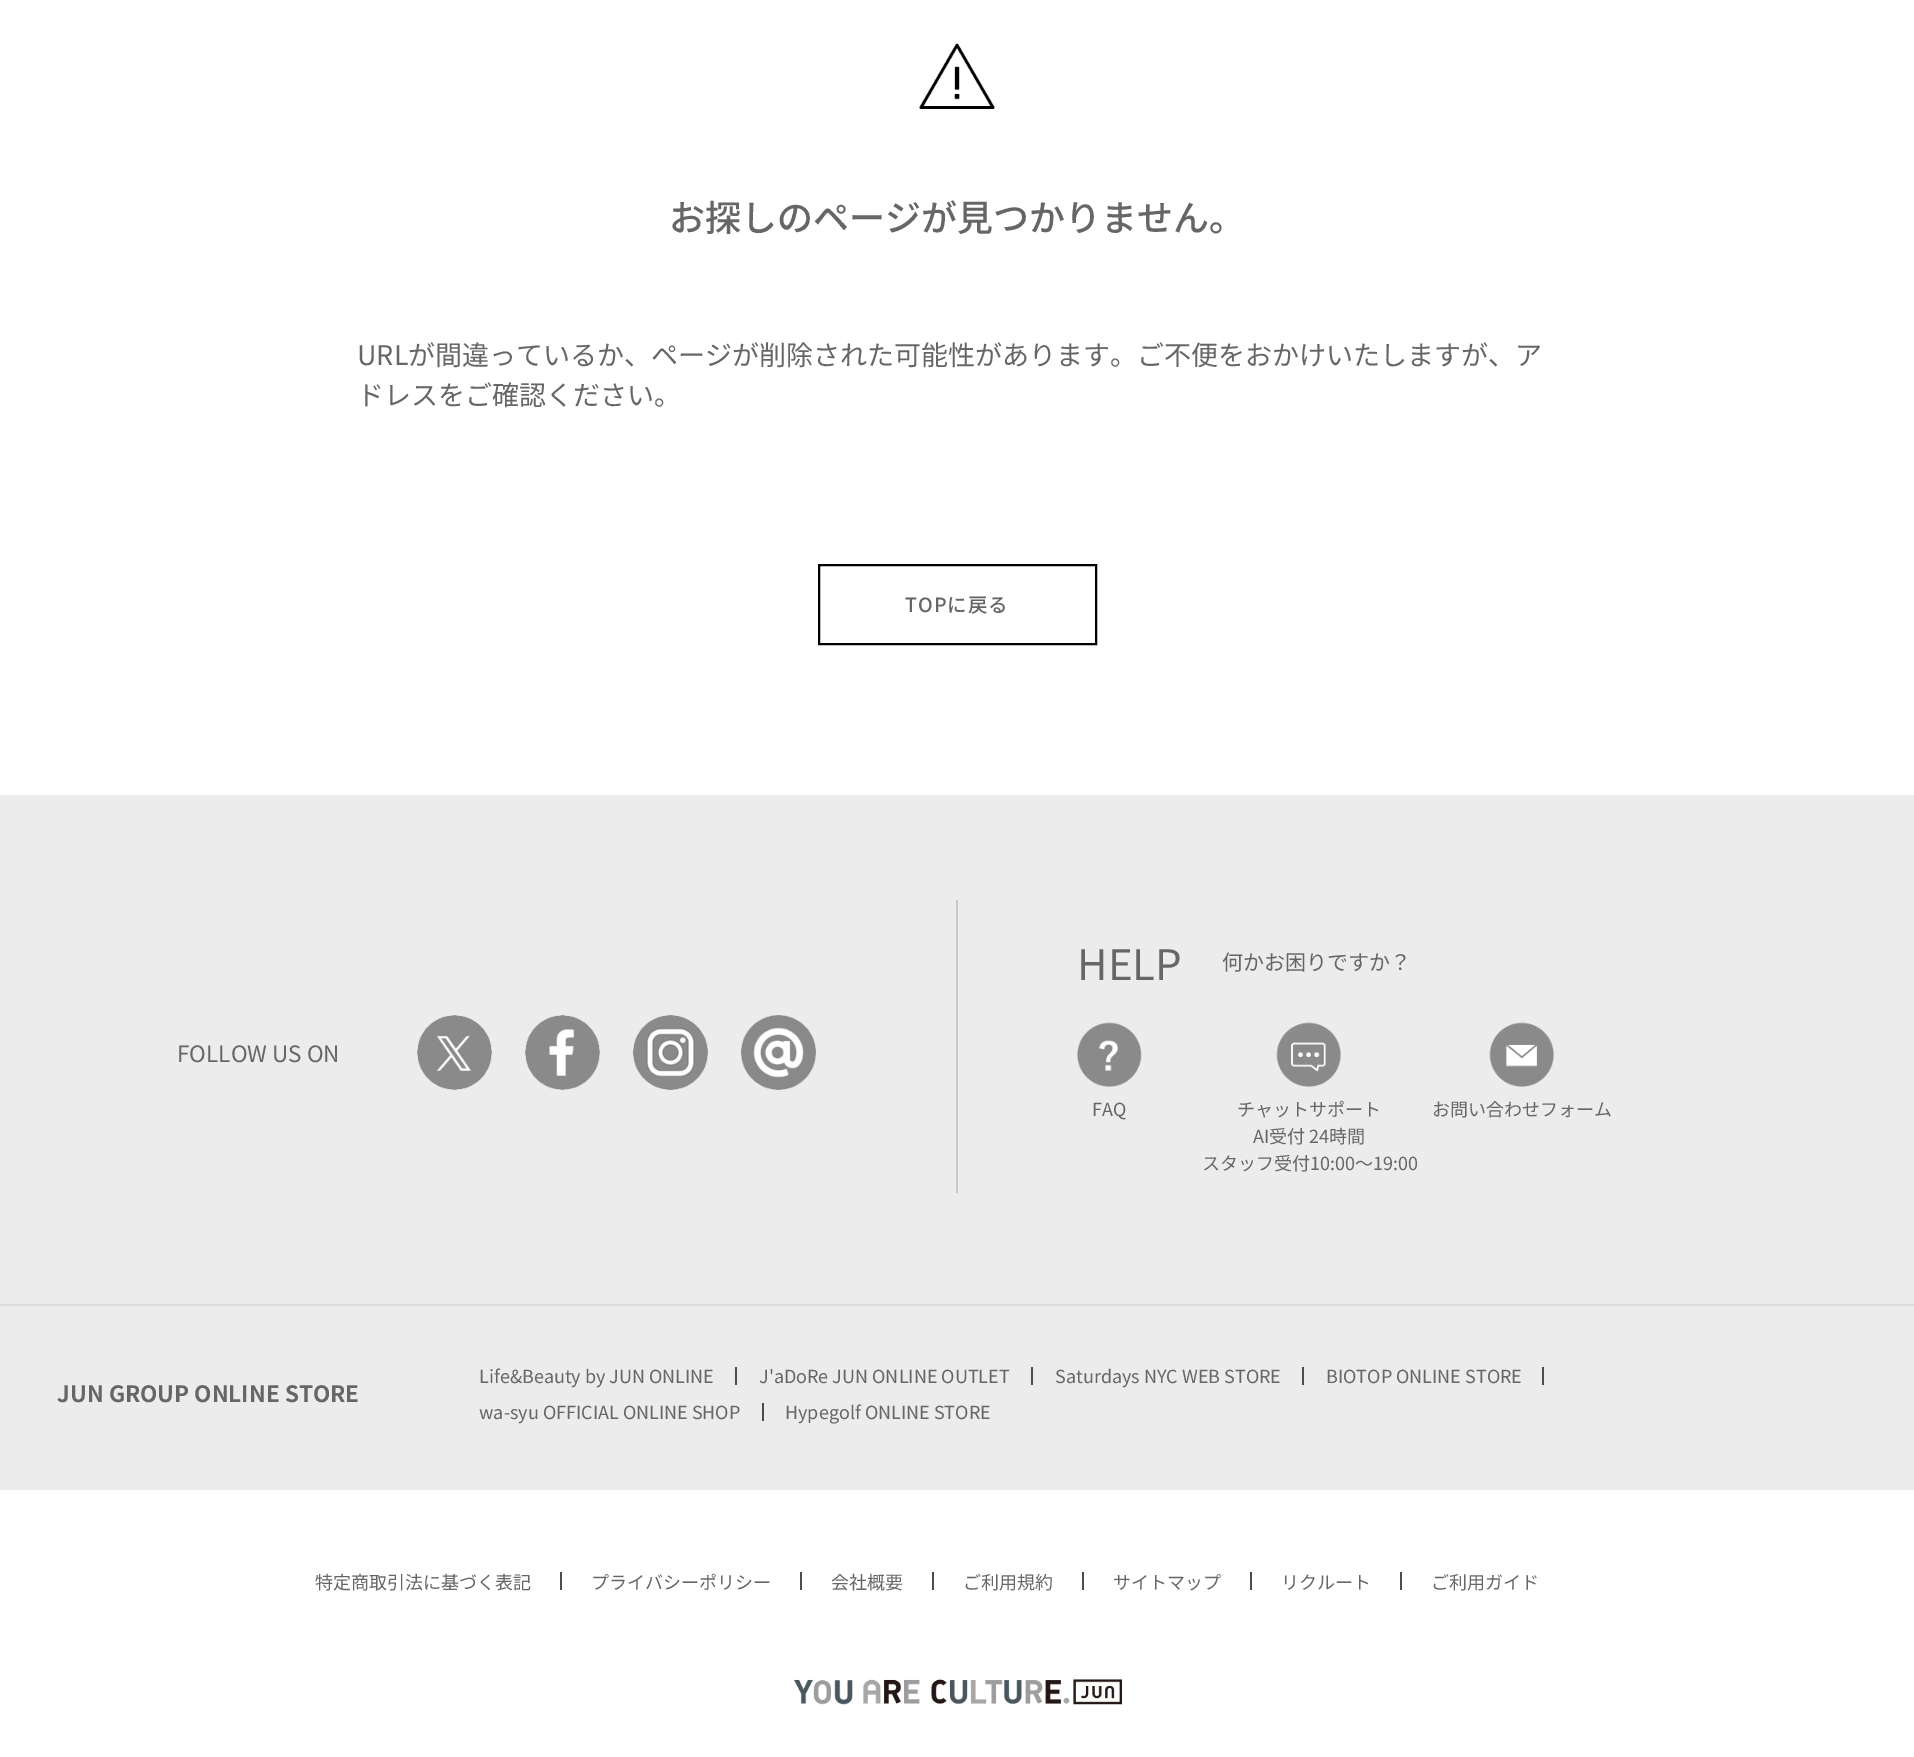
%!PS
<< /PageSize [1914 1757] >> setpagedevice
/rgb { 3 { 255 div 3 1 roll } repeat setrgbcolor } def
/font { [ exch dup neg 0 0 3 -1 roll 0 0 ] selectfont } def
/picture { 5 dict begin { /h /w /y /x /name } { exch def } forall
  gsave x y translate w h scale
  w h 8 [w 0 0 h 0 0] name (r) file false 3 colorimage grestore end } def
0 1757 translate 1 -1 scale
4 setmiterlimit
255 255 255 rgb
0 0 1914 1757 rectfill
(img/1.rgb) 919 43 76 66 picture
0 0 0 rgb
2 setlinewidth
819 565 277 79 rectstroke
236 236 236 rgb
0 795 1914 509 rectfill
(img/2.rgb) 417 1015 75 75 picture
(img/3.rgb) 525 1015 75 75 picture
(img/4.rgb) 633 1015 75 75 picture
(img/5.rgb) 741 1015 75 75 picture
201 201 201 rgb
956 900 2 293 rectfill
(img/6.rgb) 1077 1022 65 65 picture
(img/7.rgb) 1276 1022 65 65 picture
(img/8.rgb) 1489 1022 65 65 picture
[
  [0 1306 1914 184 236 236 236]
  [0 1304 1914 2 221 221 221]
  [735 1367 2 18 77 77 77]
  [1031 1367 2 18 77 77 77]
  [1302 1367 2 18 77 77 77]
  [1542 1367 2 18 77 77 77]
  [762 1403 2 18 77 77 77]
  [560 1572 2 18 77 77 77]
  [800 1572 2 18 77 77 77]
  [932 1572 2 18 77 77 77]
  [1082 1572 2 18 77 77 77]
  [1250 1572 2 18 77 77 77]
  [1400 1572 2 18 77 77 77]
] { aload pop rgb rectfill } forall
(img/9.rgb) 794 1679 328 26 picture
/NotoSansJP-Medium 36 font
102 102 102 rgb
669 231 moveto (お探しのページが見つかりません。) show
/NotoSansJP-Regular 27 font
357 365 moveto (URLが間違っているか、ページが削除された可能性があります。ご不便をおかけいたしますが、ア) show
357 405 moveto (ドレスをご確認ください。) show
/NotoSansJP-Medium 19.5 font
905 612 moveto 1 0 (TOPに戻る) ashow
/NotoSansJP-Regular 22.5 font
177 1062 moveto (FOLLOW US ON) show
/NotoSansJP-Regular 42 font
1077 980 moveto (HELP) show
/NotoSansJP-Regular 21 font
1222 970 moveto (何かお困りですか？) show
/NotoSansJP-Regular 18 font
[
  [(FAQ) 1092 1116]
  [(チャットサポート) 1237 1116]
  [(AI受付 24時間) 1253 1143]
  [(スタッフ受付10:00〜19:00) 1202 1170]
  [(お問い合わせフォーム) 1432 1116]
] { aload pop moveto show } forall
/NotoSansJP-Bold 22.5 font
57 1402 moveto (JUN GROUP ONLINE STORE) show
/NotoSansJP-Regular 18 font
[
  [(Life&Beauty by JUN ONLINE) 479 1383]
  [(J'aDoRe JUN ONLINE OUTLET) 759 1383]
  [(Saturdays NYC WEB STORE) 1055 1383]
  [(BIOTOP ONLINE STORE) 1326 1383]
  [(wa-syu OFFICIAL ONLINE SHOP) 479 1419]
  [(Hypegolf ONLINE STORE) 785 1419]
  [(特定商取引法に基づく表記) 315 1589]
  [(プライバシーポリシー) 591 1589]
  [(会社概要) 831 1589]
  [(ご利用規約) 963 1589]
  [(サイトマップ) 1113 1589]
  [(リクルート) 1281 1589]
  [(ご利用ガイド) 1431 1589]
] { aload pop moveto show } forall
showpage
